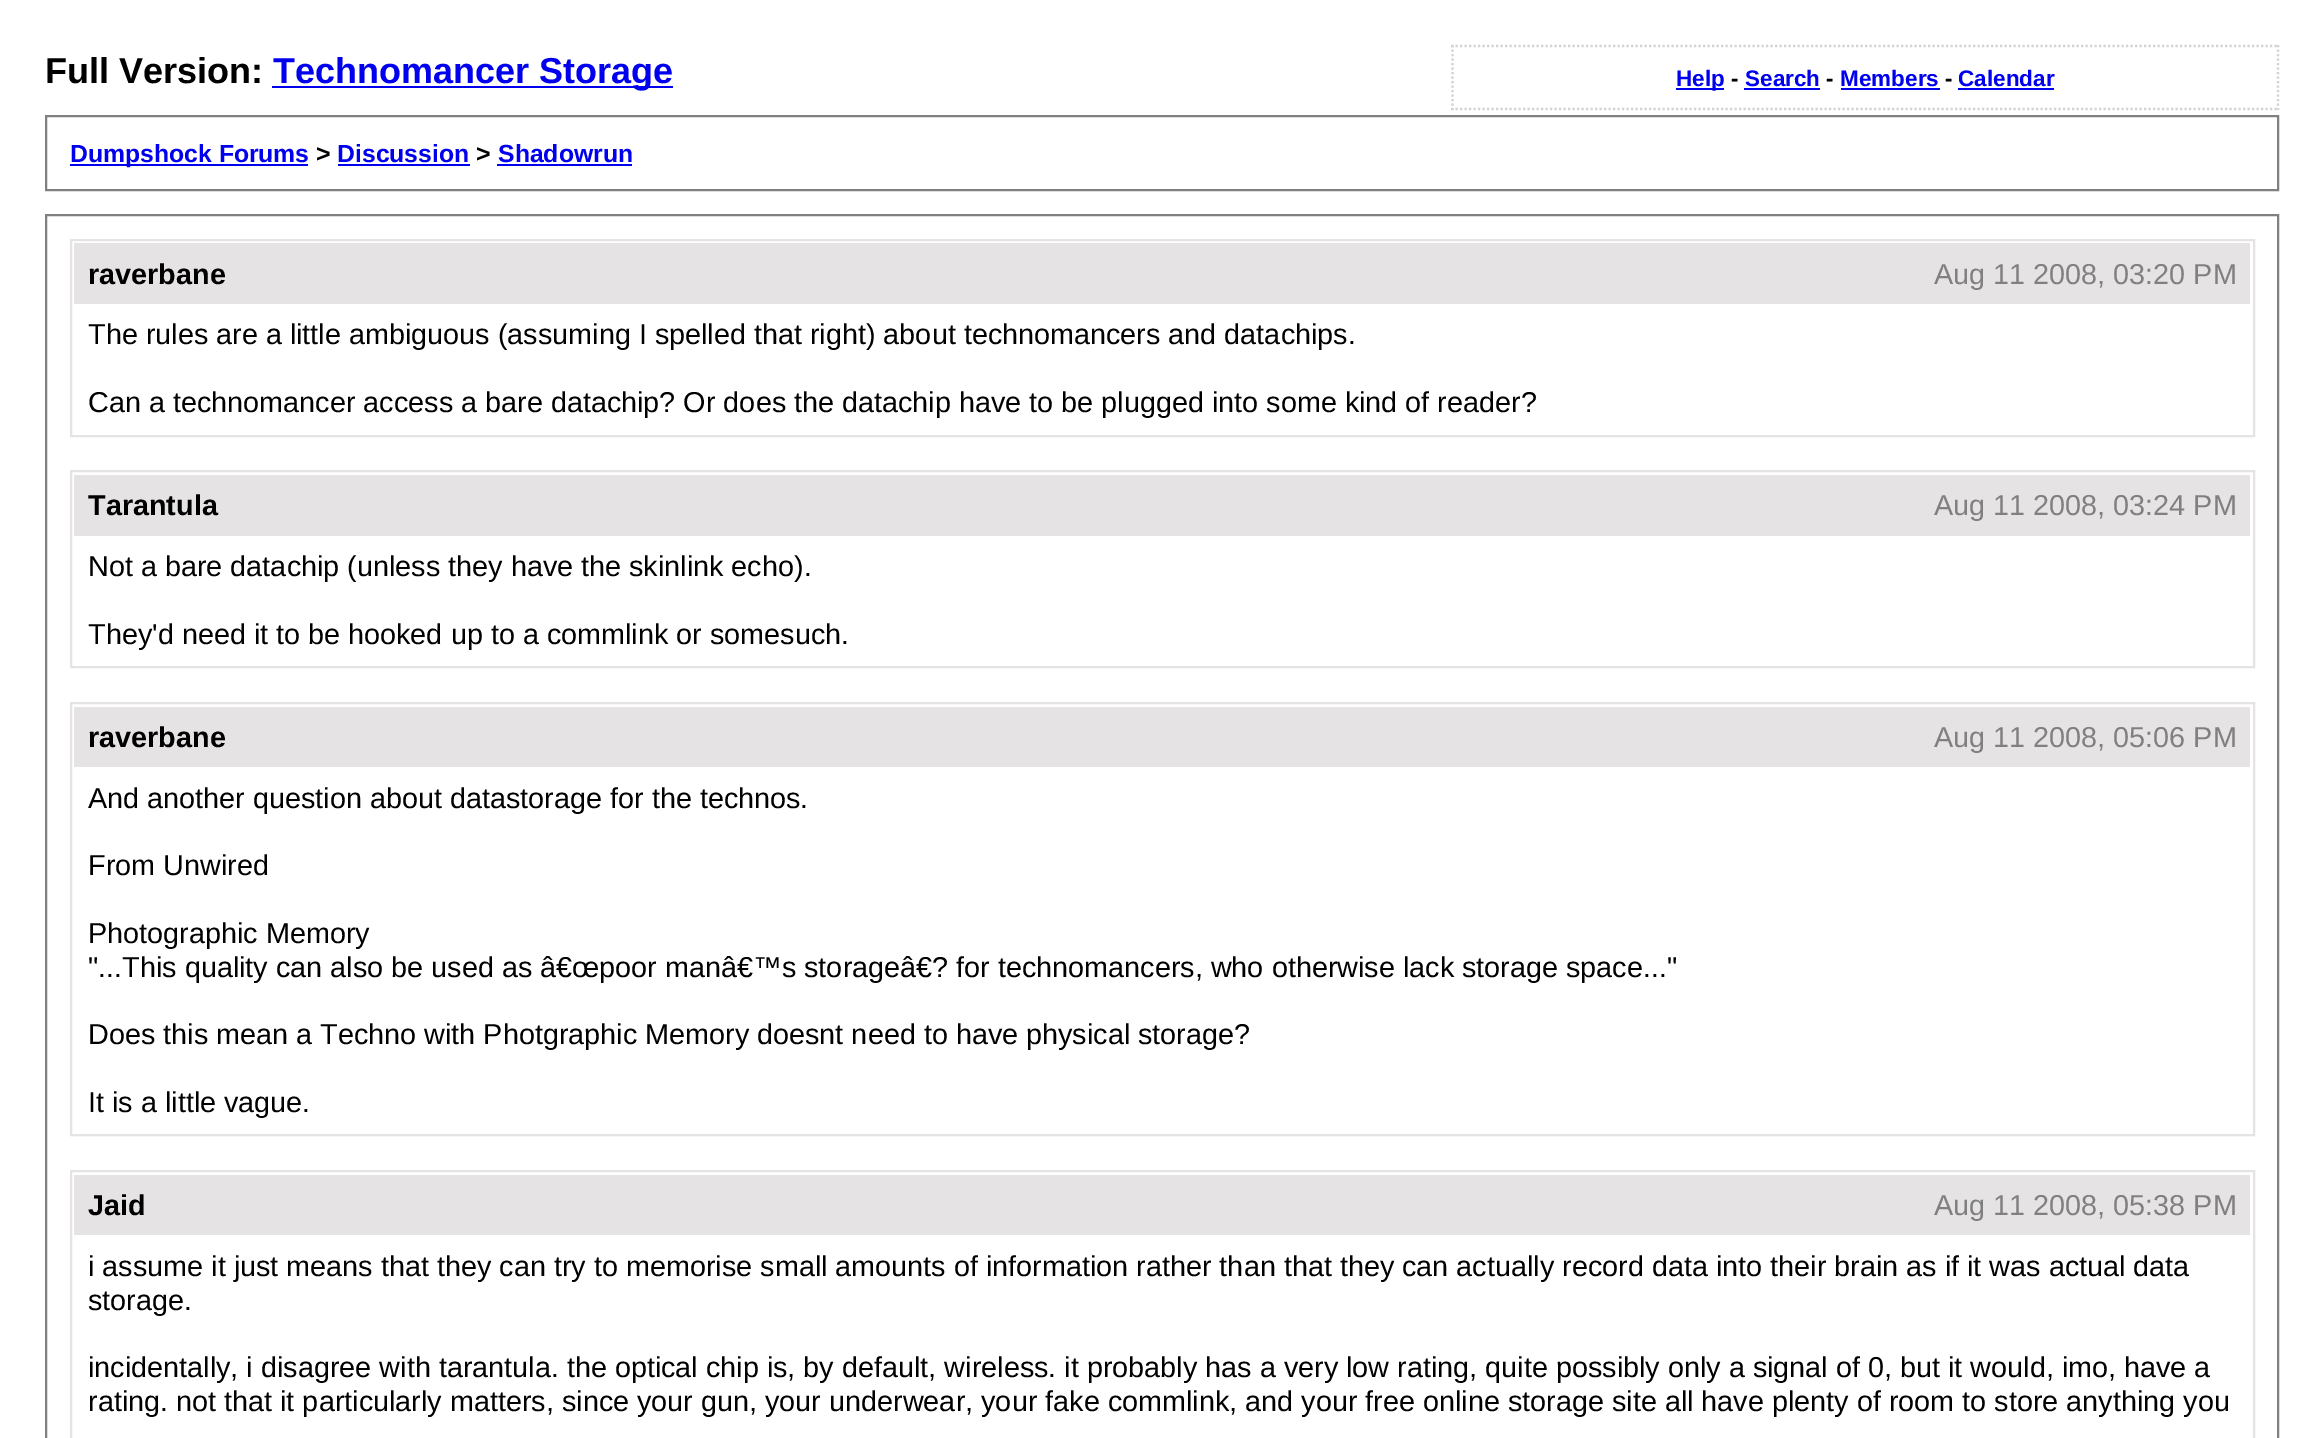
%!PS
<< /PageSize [2324 1438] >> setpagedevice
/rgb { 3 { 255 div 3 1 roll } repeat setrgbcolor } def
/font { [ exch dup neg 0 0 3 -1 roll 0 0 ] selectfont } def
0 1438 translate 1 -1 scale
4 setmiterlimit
255 255 255 rgb
0 0 2324 1438 rectfill
0 0 238 rgb
272 86 401 2 rectfill
211 211 211 rgb
2.2 setlinewidth
[2.25 2.25] 0 setdash
1451 46 moveto 2279 46 lineto stroke
2278 45 moveto 2278 110 lineto stroke
1451 109 moveto 2279 109 lineto stroke
1452.5 45 moveto 1452.5 110 lineto stroke
[
  [1676 88 48 2 0 0 238]
  [1744 88 76 2 0 0 238]
  [1841 88 99 2 0 0 238]
  [1958 88 96 2 0 0 238]
] { aload pop rgb rectfill } forall
128 128 128 rgb
2 setlinewidth
[] 0 setdash
46 116 2232 74 rectstroke
[
  [70 164 238 2 0 0 238]
  [338 164 132 2 0 0 238]
  [497 164 135 2 0 0 238]
] { aload pop rgb rectfill } forall
128 128 128 rgb
46 215 2232 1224 rectstroke
230 227 228 rgb
71 240 2183 196 rectstroke
74 243 2176 61 rectfill
71 471 2183 196 rectstroke
74 475 2176 61 rectfill
71 703 2183 432 rectstroke
74 707 2176 60 rectfill
71 1171 2183 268 rectstroke
74 1175 2176 60 rectfill
/LiberationSans-Bold 36 font
0 0 0 rgb
45 83 moveto (Full Version:) show
0 0 238 rgb
273 83 moveto (Technomancer Storage) show
/LiberationSans-Bold 22.5 font
1676 86 moveto (Help) show
0 0 0 rgb
1731 86 moveto (-) show
0 0 238 rgb
1745 86 moveto (Search) show
0 0 0 rgb
1826 86 moveto (-) show
0 0 238 rgb
1840 86 moveto (Members) show
0 0 0 rgb
1945 86 moveto (-) show
0 0 238 rgb
1958 86 moveto (Calendar) show
/LiberationSans-Bold 24.75 font
70 162 moveto (Dumpshock Forums) show
0 0 0 rgb
316 162 moveto (>) show
0 0 238 rgb
337 162 moveto (Discussion) show
0 0 0 rgb
476 162 moveto (>) show
0 0 238 rgb
498 162 moveto (Shadowrun) show
/LiberationSans-Bold 28.8 font
0 0 0 rgb
88 284 moveto (raverbane) show
/LiberationSans-Regular 28.8 font
128 128 128 rgb
1934 284 moveto (Aug 11 2008, 03:20 PM) show
0 0 0 rgb
88 344 moveto (The rules are a little ambiguous \(assuming I spelled that right\) about technomancers and datachips.) show
88 412 moveto (Can a technomancer access a bare datachip? Or does the datachip have to be plugged into some kind of reader?) show
/LiberationSans-Bold 28.8 font
88 515 moveto (Tarantula) show
/LiberationSans-Regular 28.8 font
128 128 128 rgb
1934 515 moveto (Aug 11 2008, 03:24 PM) show
0 0 0 rgb
88 576 moveto (Not a bare datachip \(unless they have the skinlink echo\).) show
88 644 moveto (They'd need it to be hooked up to a commlink or somesuch.) show
/LiberationSans-Bold 28.8 font
88 747 moveto (raverbane) show
/LiberationSans-Regular 28.8 font
128 128 128 rgb
1934 747 moveto (Aug 11 2008, 05:06 PM) show
0 0 0 rgb
[
  [(And another question about datastorage for the technos.) 88 808]
  [(From Unwired) 88 875]
  [(Photographic Memory) 88 943]
  [("...This quality can also be used as â€œpoor manâ€™s storageâ€? for technomancers, who otherwise lack storage space...") 88 977]
  [(Does this mean a Techno with Photgraphic Memory doesnt need to have physical storage?) 88 1044]
  [(It is a little vague.) 88 1112]
] { aload pop moveto show } forall
/LiberationSans-Bold 28.8 font
88 1215 moveto (Jaid) show
/LiberationSans-Regular 28.8 font
128 128 128 rgb
1934 1215 moveto (Aug 11 2008, 05:38 PM) show
0 0 0 rgb
[
  [(i assume it just means that they can try to memorise small amounts of information rather than that they can actually record data into their brain as if it was actual data) 88 1276]
  [(storage.) 88 1310]
  [(incidentally, i disagree with tarantula. the optical chip is, by default, wireless. it probably has a very low rating, quite possibly only a signal of 0, but it would, imo, have a) 88 1377]
  [(rating. not that it particularly matters, since your gun, your underwear, your fake commlink, and your free online storage site all have plenty of room to store anything you) 88 1411]
] { aload pop moveto show } forall
showpage
